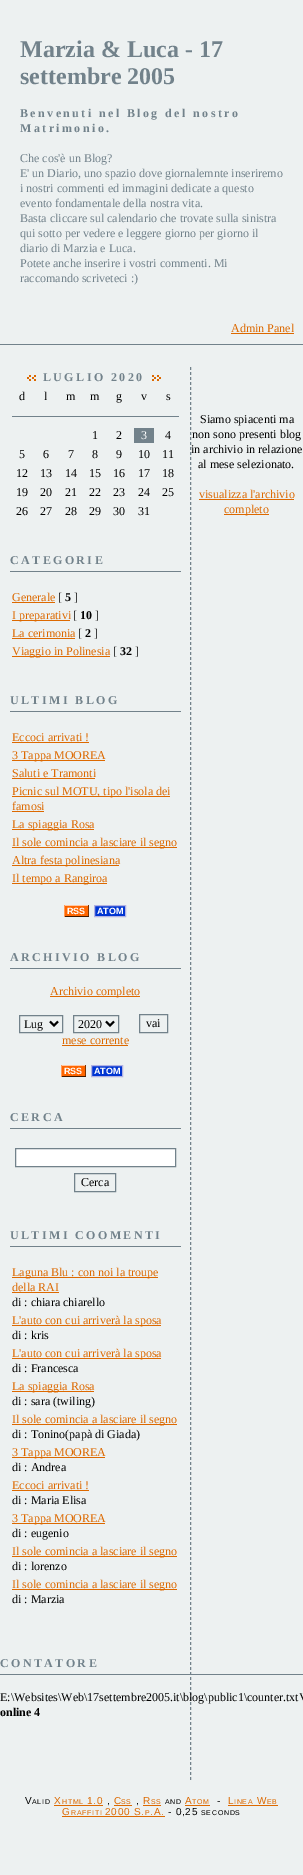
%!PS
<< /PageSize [303 1875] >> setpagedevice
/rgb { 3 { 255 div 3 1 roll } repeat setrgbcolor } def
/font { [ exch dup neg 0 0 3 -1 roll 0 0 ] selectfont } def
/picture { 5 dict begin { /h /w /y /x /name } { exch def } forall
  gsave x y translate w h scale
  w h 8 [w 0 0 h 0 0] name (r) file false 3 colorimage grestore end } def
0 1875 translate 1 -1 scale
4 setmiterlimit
237 241 241 rgb
0 0 303 1875 rectfill
221 105 0 rgb
231 333 63 1 rectfill
114 130 139 rgb
0 344 303 1 rectfill
[3 2] 0 setdash
190.5 367 moveto 190.5 1780 lineto stroke
(img/1.rgb) 27 375 9 6 picture
(img/2.rgb) 152 375 9 6 picture
[
  [12 416 167 1 114 130 139]
  [134 428 20 15 114 130 139]
  [10 571 171 1 114 130 139]
  [12 602 43 1 221 105 0]
  [12 620 58 1 221 105 0]
  [12 638 63 1 221 105 0]
  [12 656 98 1 221 105 0]
  [10 711 171 1 114 130 139]
  [12 742 77 1 221 105 0]
  [12 760 93 1 221 105 0]
  [12 778 83 1 221 105 0]
  [12 796 158 1 221 105 0]
  [12 811 32 1 221 105 0]
  [12 829 82 1 221 105 0]
  [12 847 165 1 221 105 0]
  [12 865 107 1 221 105 0]
  [12 883 95 1 221 105 0]
  [65 906 23 10 255 102 0]
  [64 905 25 1 255 200 164]
  [88 905 1 12 125 51 2]
  [64 916 25 1 63 26 1]
  [64 905 1 12 255 154 87]
] { aload pop rgb rectfill } forall
0 53 210 rgb
94.5 905.5 moveto 125.5 905.5 lineto 125.5 916.5 lineto 94.5 916.5 lineto closepath gsave fill grestore
178 178 227 rgb
[] 0 setdash
stroke
114 130 139 rgb
10 968 171 1 rectfill
221 105 0 rgb
50 996 90 1 rectfill
114 130 139 rgb
19.5 1015.5 43 17 rectstroke
0 0 0 rgb
2 setlinewidth
50 1021.5 moveto 54 1025.5 lineto 58 1021.5 lineto stroke
114 130 139 rgb
1 setlinewidth
73.5 1015.5 45 17 rectstroke
0 0 0 rgb
2 setlinewidth
106 1021.5 moveto 110 1025.5 lineto 114 1021.5 lineto stroke
114 130 139 rgb
1 setlinewidth
139.5 1014.5 28 18 rectstroke
[
  [62 1045 66 1 221 105 0]
  [62 1066 23 10 255 102 0]
  [61 1065 25 1 255 200 164]
  [85 1065 1 12 125 51 2]
  [61 1076 25 1 63 26 1]
  [61 1065 1 12 255 154 87]
] { aload pop rgb rectfill } forall
0 53 210 rgb
91.5 1065.5 moveto 122.5 1065.5 lineto 122.5 1076.5 lineto 91.5 1076.5 lineto closepath gsave fill grestore
178 178 227 rgb
stroke
114 130 139 rgb
10 1128 171 1 rectfill
255 255 255 rgb
15.5 1148.5 moveto 175.5 1148.5 lineto 175.5 1166.5 lineto 15.5 1166.5 lineto closepath gsave fill grestore
114 130 139 rgb
stroke
74.5 1173.5 41 18 rectstroke
[
  [10 1246 171 1 114 130 139]
  [12 1277 146 1 221 105 0]
  [12 1292 47 1 221 105 0]
  [12 1325 149 1 221 105 0]
  [12 1358 149 1 221 105 0]
  [12 1391 82 1 221 105 0]
  [12 1424 165 1 221 105 0]
  [12 1457 93 1 221 105 0]
  [12 1490 77 1 221 105 0]
  [12 1523 93 1 221 105 0]
  [12 1556 165 1 221 105 0]
  [12 1589 165 1 221 105 0]
  [0 1674 303 1 114 130 139]
  [199 499 95 1 221 105 0]
  [224 514 45 1 221 105 0]
  [54 1805 49 1 221 105 0]
  [114 1805 18 1 221 105 0]
  [143 1805 18 1 221 105 0]
  [185 1805 25 1 221 105 0]
  [228 1805 50 1 221 105 0]
  [62 1816 103 1 221 105 0]
] { aload pop rgb rectfill } forall
/LiberationSerif-Bold 24 font
114 130 139 rgb
20 57 moveto (Marzia & Luca - 17) show
20 84 moveto (settembre 2005) show
/LiberationSerif-Bold 12 font
20 117 moveto 2.4 0 (Benvenuti nel Blog del nostro) ashow
20 132 moveto 2.4 0 (Matrimonio.) ashow
/LiberationSerif-Regular 12 font
[
  [(Che cos'è un Blog?) 20 162]
  [(E' un Diario, uno spazio dove giornalemnte inseriremo) 20 177]
  [(i nostri commenti ed immagini dedicate a questo) 20 192]
  [(evento fondamentale della nostra vita.) 20 207]
  [(Basta cliccare sul calendario che trovate sulla sinistra) 20 222]
  [(qui sotto per vedere e leggere giorno per giorno il) 20 237]
  [(diario di Marzia e Luca.) 20 252]
  [(Potete anche inserire i vostri commenti. Mi) 20 267]
  [(raccomando scriveteci :\)) 20 282]
] { aload pop moveto show } forall
221 105 0 rgb
231 332 moveto (Admin Panel) show
/LiberationSerif-Bold 12 font
114 130 139 rgb
43 381 moveto 2.4 0 (LUGLIO 2020) ashow
/LiberationSerif-Regular 12 font
0 0 0 rgb
[
  [(d) 19 400]
  [(l) 44 400]
  [(m) 66 400]
  [(m) 90 400]
  [(g) 116 400]
  [(v) 141 400]
  [(s) 166 400]
  [(1) 92 439]
  [(2) 116 439]
] { aload pop moveto show } forall
255 255 255 rgb
141 439 moveto (3) show
0 0 0 rgb
[
  [(4) 165 439]
  [(5) 19 458]
  [(6) 43 458]
  [(7) 68 458]
  [(8) 92 458]
  [(9) 116 458]
  [(10) 138 458]
  [(11) 162 458]
  [(12) 16 477]
  [(13) 40 477]
  [(14) 65 477]
  [(15) 89 477]
  [(16) 113 477]
  [(17) 138 477]
  [(18) 162 477]
  [(19) 16 496]
  [(20) 40 496]
  [(21) 65 496]
  [(22) 89 496]
  [(23) 113 496]
  [(24) 138 496]
  [(25) 162 496]
  [(26) 16 515]
  [(27) 40 515]
  [(28) 65 515]
  [(29) 89 515]
  [(30) 113 515]
  [(31) 138 515]
] { aload pop moveto show } forall
/LiberationSerif-Bold 12 font
114 130 139 rgb
10 564 moveto 2.4 0 (CATEGORIE) ashow
/LiberationSerif-Regular 12 font
221 105 0 rgb
12 601 moveto (Generale) show
0 0 0 rgb
58 601 moveto ([) show
/LiberationSerif-Bold 12 font
65 601 moveto (5) show
/LiberationSerif-Regular 12 font
74 601 moveto (]) show
221 105 0 rgb
12 619 moveto (I preparativi) show
0 0 0 rgb
73 619 moveto ([) show
/LiberationSerif-Bold 12 font
80 619 moveto (10) show
/LiberationSerif-Regular 12 font
95 619 moveto (]) show
221 105 0 rgb
12 637 moveto (La cerimonia) show
0 0 0 rgb
78 637 moveto ([) show
/LiberationSerif-Bold 12 font
85 637 moveto (2) show
/LiberationSerif-Regular 12 font
94 637 moveto (]) show
221 105 0 rgb
12 655 moveto (Viaggio in Polinesia) show
0 0 0 rgb
113 655 moveto ([) show
/LiberationSerif-Bold 12 font
120 655 moveto (32) show
/LiberationSerif-Regular 12 font
135 655 moveto (]) show
/LiberationSerif-Bold 12 font
114 130 139 rgb
10 704 moveto 2.4 0 (ULTIMI BLOG) ashow
/LiberationSerif-Regular 12 font
221 105 0 rgb
[
  [(Eccoci arrivati !) 12 741]
  [(3 Tappa MOOREA) 12 759]
  [(Saluti e Tramonti) 12 777]
  [(Picnic sul MOTU, tipo l'isola dei) 12 795]
  [(famosi) 12 810]
  [(La spiaggia Rosa) 12 828]
  [(Il sole comincia a lasciare il segno) 12 846]
  [(Altra festa polinesiana) 12 864]
  [(Il tempo a Rangiroa) 12 882]
] { aload pop moveto show } forall
/LiberationSans-Bold 9 font
255 255 255 rgb
67 914 moveto (RSS) show
97 914 moveto (ATOM) show
/LiberationSerif-Bold 12 font
114 130 139 rgb
10 961 moveto 2.4 0 (ARCHIVIO BLOG) ashow
/LiberationSerif-Regular 12 font
221 105 0 rgb
50 995 moveto (Archivio completo) show
0 0 0 rgb
[
  [(Lug) 24 1028]
  [(2020) 78 1028]
  [(vai) 146 1027]
] { aload pop moveto show } forall
221 105 0 rgb
62 1044 moveto (mese corrente) show
/LiberationSans-Bold 9 font
255 255 255 rgb
64 1074 moveto (RSS) show
94 1074 moveto (ATOM) show
/LiberationSerif-Bold 12 font
114 130 139 rgb
10 1121 moveto 2.4 0 (CERCA) ashow
/LiberationSerif-Regular 12 font
0 0 0 rgb
81 1186 moveto (Cerca) show
/LiberationSerif-Bold 12 font
114 130 139 rgb
10 1239 moveto 2.4 0 (ULTIMI COOMENTI) ashow
/LiberationSerif-Regular 12 font
221 105 0 rgb
12 1276 moveto (Laguna Blu : con noi la troupe) show
12 1291 moveto (della RAI) show
0 0 0 rgb
12 1306 moveto (di : chiara chiarello) show
221 105 0 rgb
12 1324 moveto (L'auto con cui arriverà la sposa) show
0 0 0 rgb
12 1339 moveto (di : kris) show
221 105 0 rgb
12 1357 moveto (L'auto con cui arriverà la sposa) show
0 0 0 rgb
12 1372 moveto (di : Francesca) show
221 105 0 rgb
12 1390 moveto (La spiaggia Rosa) show
0 0 0 rgb
12 1405 moveto (di : sara \(twiling\)) show
221 105 0 rgb
12 1423 moveto (Il sole comincia a lasciare il segno) show
0 0 0 rgb
12 1438 moveto (di : Tonino\(papà di Giada\)) show
221 105 0 rgb
12 1456 moveto (3 Tappa MOOREA) show
0 0 0 rgb
12 1471 moveto (di : Andrea) show
221 105 0 rgb
12 1489 moveto (Eccoci arrivati !) show
0 0 0 rgb
12 1504 moveto (di : Maria Elisa) show
221 105 0 rgb
12 1522 moveto (3 Tappa MOOREA) show
0 0 0 rgb
12 1537 moveto (di : eugenio) show
221 105 0 rgb
12 1555 moveto (Il sole comincia a lasciare il segno) show
0 0 0 rgb
12 1570 moveto (di : lorenzo) show
221 105 0 rgb
12 1588 moveto (Il sole comincia a lasciare il segno) show
0 0 0 rgb
12 1603 moveto (di : Marzia) show
/LiberationSerif-Bold 12 font
114 130 139 rgb
0 1667 moveto 2.4 0 (CONTATORE) ashow
/LiberationSerif-Regular 12 font
0 0 0 rgb
0 1701 moveto (E:\\Websites\\Web\\17settembre2005.it\\blog\\public1\\counter.txtV) show
/LiberationSerif-Bold 12 font
0 1716 moveto (online 4) show
/LiberationSerif-Regular 12 font
[
  [(Siamo spiacenti ma) 200 423]
  [(non sono presenti blog) 192 438]
  [(in archivio in relazione) 191 453]
  [(al mese selezionato.) 198 468]
] { aload pop moveto show } forall
221 105 0 rgb
199 498 moveto (visualizza l'archivio) show
224 513 moveto (completo) show
/LiberationSans-Regular 10 font
0 0 0 rgb
25 1804 moveto 0.75 0 (V) ashow
/LiberationSans-Regular 7 font
32 1804 moveto 0.75 0 (ALID) ashow
/LiberationSans-Regular 10 font
221 105 0 rgb
54 1804 moveto 0.75 0 (X) ashow
/LiberationSans-Regular 7 font
62 1804 moveto 0.75 0 (HTML) ashow
/LiberationSans-Regular 10 font
87 1804 moveto 0.75 0 (1.0) ashow
114 1804 moveto 0.75 0 (C) ashow
/LiberationSans-Regular 7 font
121 1804 moveto 0.75 0 (SS) ashow
/LiberationSans-Regular 10 font
143 1804 moveto 0.75 0 (R) ashow
/LiberationSans-Regular 7 font
151 1804 moveto 0.75 0 (SS) ashow
0 0 0 rgb
165 1804 moveto 0.75 0 (AND) ashow
/LiberationSans-Regular 10 font
221 105 0 rgb
185 1804 moveto 0.75 0 (A) ashow
/LiberationSans-Regular 7 font
192 1804 moveto 0.75 0 (TOM) ashow
/LiberationSans-Regular 10 font
0 0 0 rgb
217 1804 moveto 0.75 0 (-) ashow
221 105 0 rgb
228 1804 moveto 0.75 0 (L) ashow
/LiberationSans-Regular 7 font
234 1804 moveto 0.75 0 (INEA) ashow
/LiberationSans-Regular 10 font
257 1804 moveto 0.75 0 (W) ashow
/LiberationSans-Regular 7 font
267 1804 moveto 0.75 0 (EB) ashow
/LiberationSans-Regular 10 font
0 0 0 rgb
107 1804 moveto 0.75 0 (,) ashow
136 1804 moveto 0.75 0 (,) ashow
221 105 0 rgb
62 1815 moveto 0.75 0 (G) ashow
/LiberationSans-Regular 7 font
71 1815 moveto 0.75 0 (RAFFITI) ashow
/LiberationSans-Regular 10 font
105 1815 moveto 0.75 0 (2000 S.) ashow
/LiberationSans-Regular 7 font
145 1815 moveto 0.75 0 (P) ashow
/LiberationSans-Regular 10 font
150 1815 moveto 0.75 0 (.A.) ashow
0 0 0 rgb
168 1815 moveto 0.75 0 (- 0,25) ashow
/LiberationSans-Regular 7 font
201 1815 moveto 0.75 0 (SECONDS) ashow
showpage
